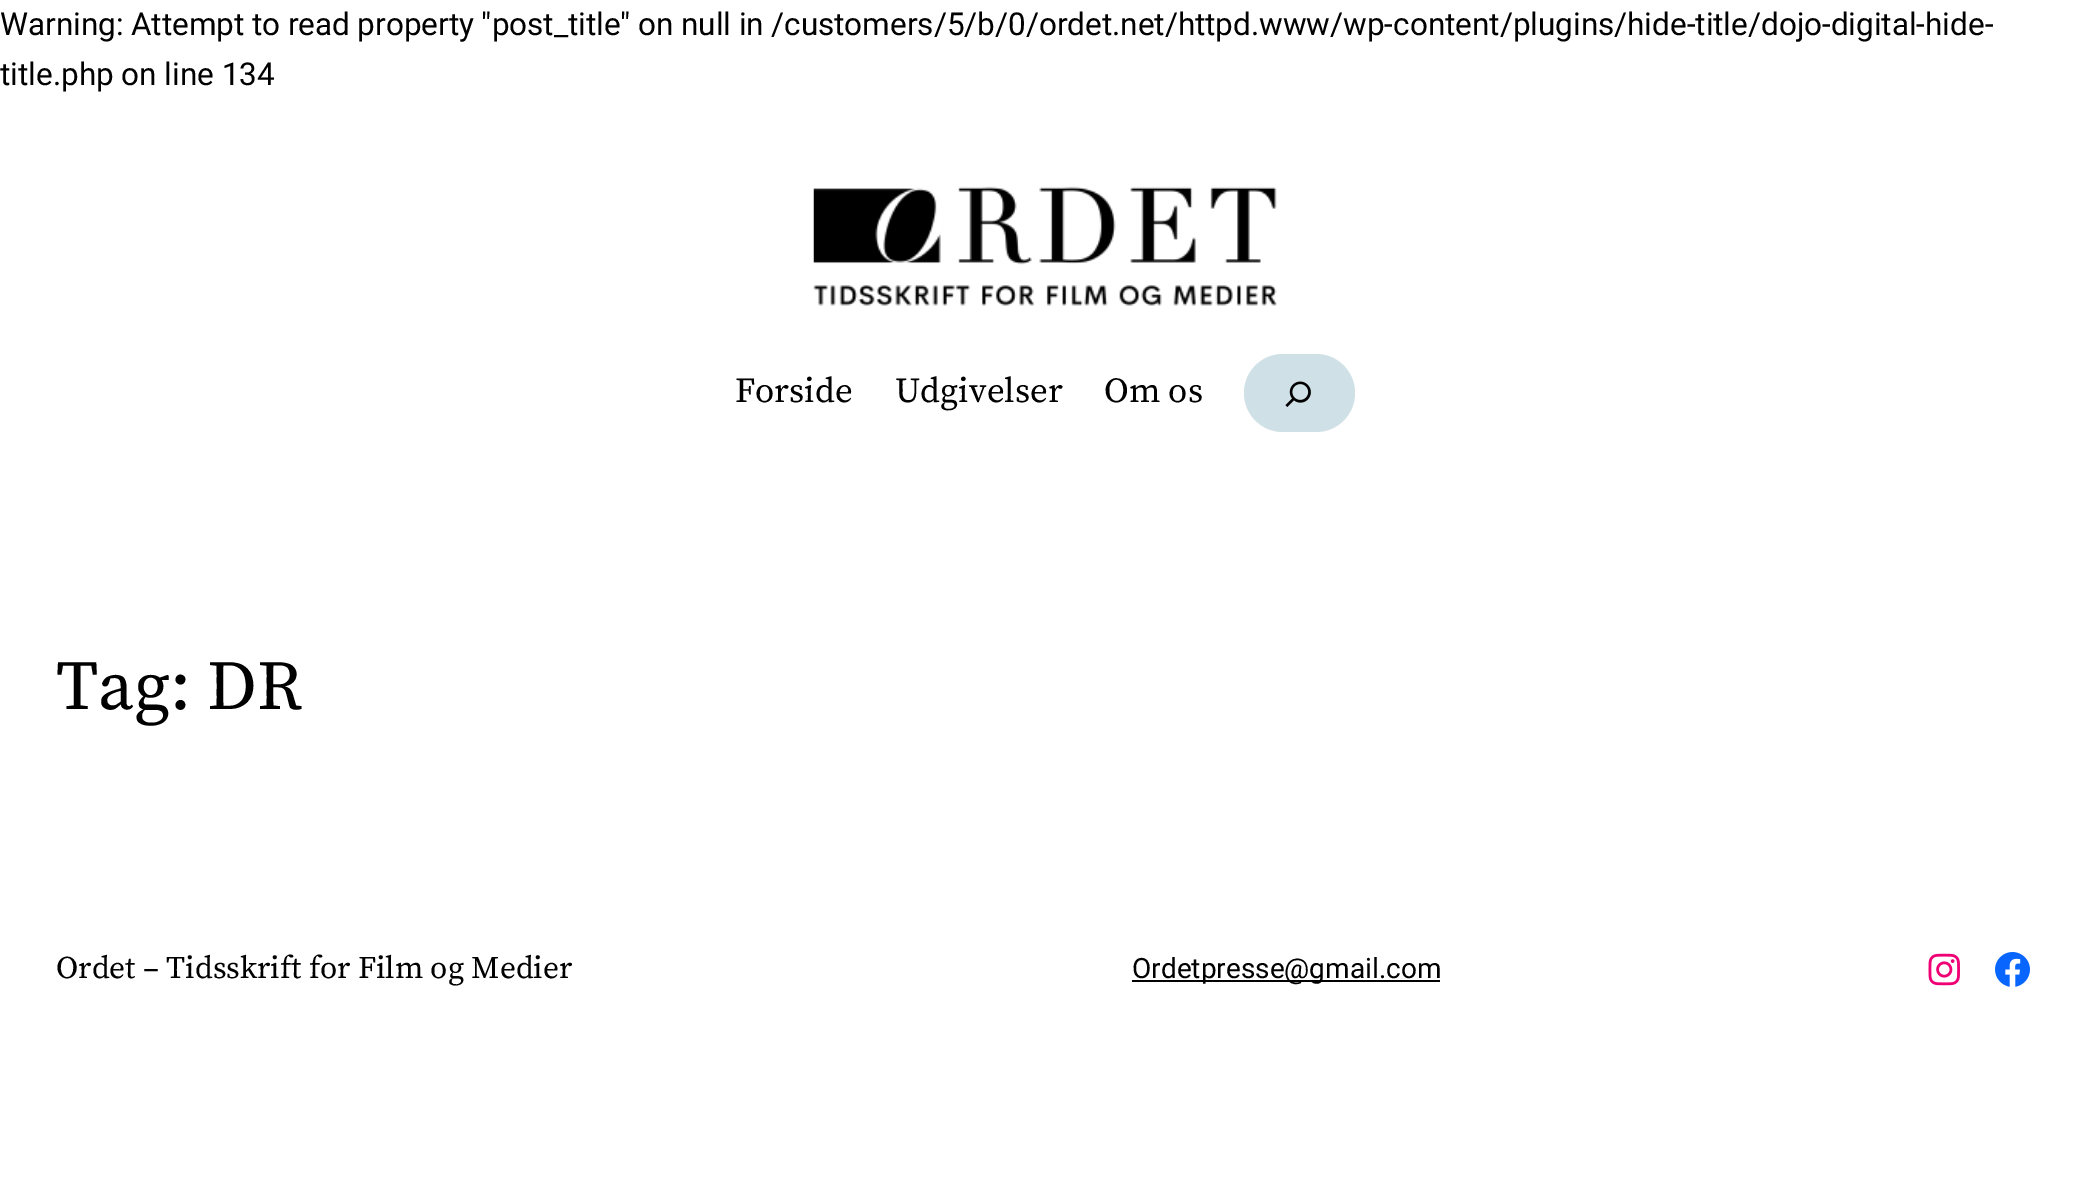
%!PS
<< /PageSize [2089 1178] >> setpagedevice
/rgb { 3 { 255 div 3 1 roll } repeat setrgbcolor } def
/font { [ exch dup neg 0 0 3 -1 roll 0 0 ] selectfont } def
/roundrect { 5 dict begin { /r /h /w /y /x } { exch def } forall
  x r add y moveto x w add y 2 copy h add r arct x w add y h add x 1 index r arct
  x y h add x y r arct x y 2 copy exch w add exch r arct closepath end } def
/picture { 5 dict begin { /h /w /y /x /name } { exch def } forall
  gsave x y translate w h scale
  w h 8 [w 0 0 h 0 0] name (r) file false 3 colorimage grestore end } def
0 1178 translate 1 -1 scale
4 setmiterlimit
255 255 255 rgb
0 0 2089 1178 rectfill
(img/1.rgb) 813 186 464 120 picture
207 224 230 rgb
1244 354 111 78 39 roundrect fill
(img/2.rgb) 1285 381 26 26 picture
0 0 0 rgb
1132 980 308 2 rectfill
(img/3.rgb) 1928 953 32 33 picture
(img/4.rgb) 1995 952 35 35 picture
/Roboto-Regular 31.47 font
0 35 moveto -0.25 0 32 (Warning: Attempt to read property "post_title" on null in /customers/5/b/0/ordet.net/httpd.www/wp-content/plugins/hide-title/dojo-digital-hide-) widthshow
0 85 moveto (title.php on line 134) show
/SourceSerifPro-Regular 35 font
[
  [(Forside) 735 402]
  [(Udgivelser) 895 402]
  [(Om os) 1104 402]
] { aload pop moveto show } forall
/SourceSerifPro-Regular 70 font
56 709 moveto (Tag: DR) show
/SourceSerifPro-Regular 31.47 font
56 978 moveto (Ordet – Tidsskrift for Film og Medier) show
/Roboto-Regular 28 font
1132 978 moveto (Ordetpresse@gmail.com) show
showpage
